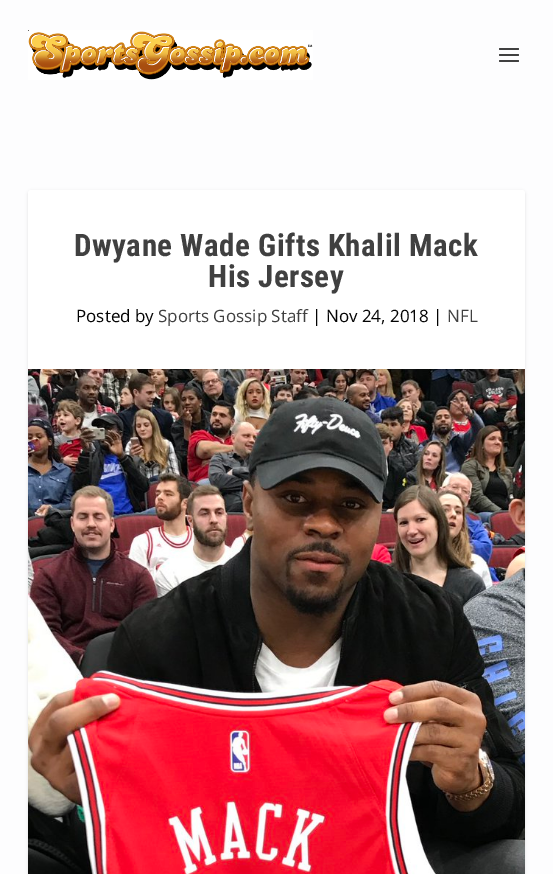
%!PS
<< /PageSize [553 874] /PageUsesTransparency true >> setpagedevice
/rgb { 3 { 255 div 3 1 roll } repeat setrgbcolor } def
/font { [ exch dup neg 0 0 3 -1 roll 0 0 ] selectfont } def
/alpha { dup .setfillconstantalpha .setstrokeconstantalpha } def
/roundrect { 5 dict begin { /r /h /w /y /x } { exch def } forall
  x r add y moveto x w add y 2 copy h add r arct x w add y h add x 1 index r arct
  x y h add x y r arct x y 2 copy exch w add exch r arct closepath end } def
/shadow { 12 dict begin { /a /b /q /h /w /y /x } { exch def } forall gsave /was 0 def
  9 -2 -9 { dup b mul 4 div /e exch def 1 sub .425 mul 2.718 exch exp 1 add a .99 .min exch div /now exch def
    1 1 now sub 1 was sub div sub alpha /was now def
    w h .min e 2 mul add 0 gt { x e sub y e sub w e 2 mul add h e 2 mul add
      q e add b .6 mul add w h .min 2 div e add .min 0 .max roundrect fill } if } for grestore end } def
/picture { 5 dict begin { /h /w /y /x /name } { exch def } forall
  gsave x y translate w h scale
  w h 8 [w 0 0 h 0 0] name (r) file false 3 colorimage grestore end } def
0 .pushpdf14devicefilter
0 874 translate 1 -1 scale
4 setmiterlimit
253 253 254 rgb
0 0 553 874 rectfill
(img/1.rgb) 28 30 285 50 picture
64 64 64 rgb
499 48 20 2 1 roundrect fill
499 54 20 2 1 roundrect fill
499 60 20 2 1 roundrect fill
0 0 0 rgb
28 191 497 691 3 1.5 0.1 shadow
255 255 255 rgb
28 190 497 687 3 roundrect fill
(img/2.rgb) 28 369 497 505 picture
/RobotoCondensed-Bold 31 font
64 64 64 rgb
74 256 moveto 0.5 0 (Dwyane Wade Gifts Khalil Mack) ashow
208 287 moveto 0.5 0 (His Jersey) ashow
/OpenSans-Regular 17 font
3 3 3 rgb
76 322 moveto (Posted by) show
64 64 64 rgb
158 322 moveto (Sports Gossip Staff) show
3 3 3 rgb
312 322 moveto (| Nov 24, 2018 |) show
64 64 64 rgb
447 322 moveto (NFL) show
.poppdf14devicefilter showpage
